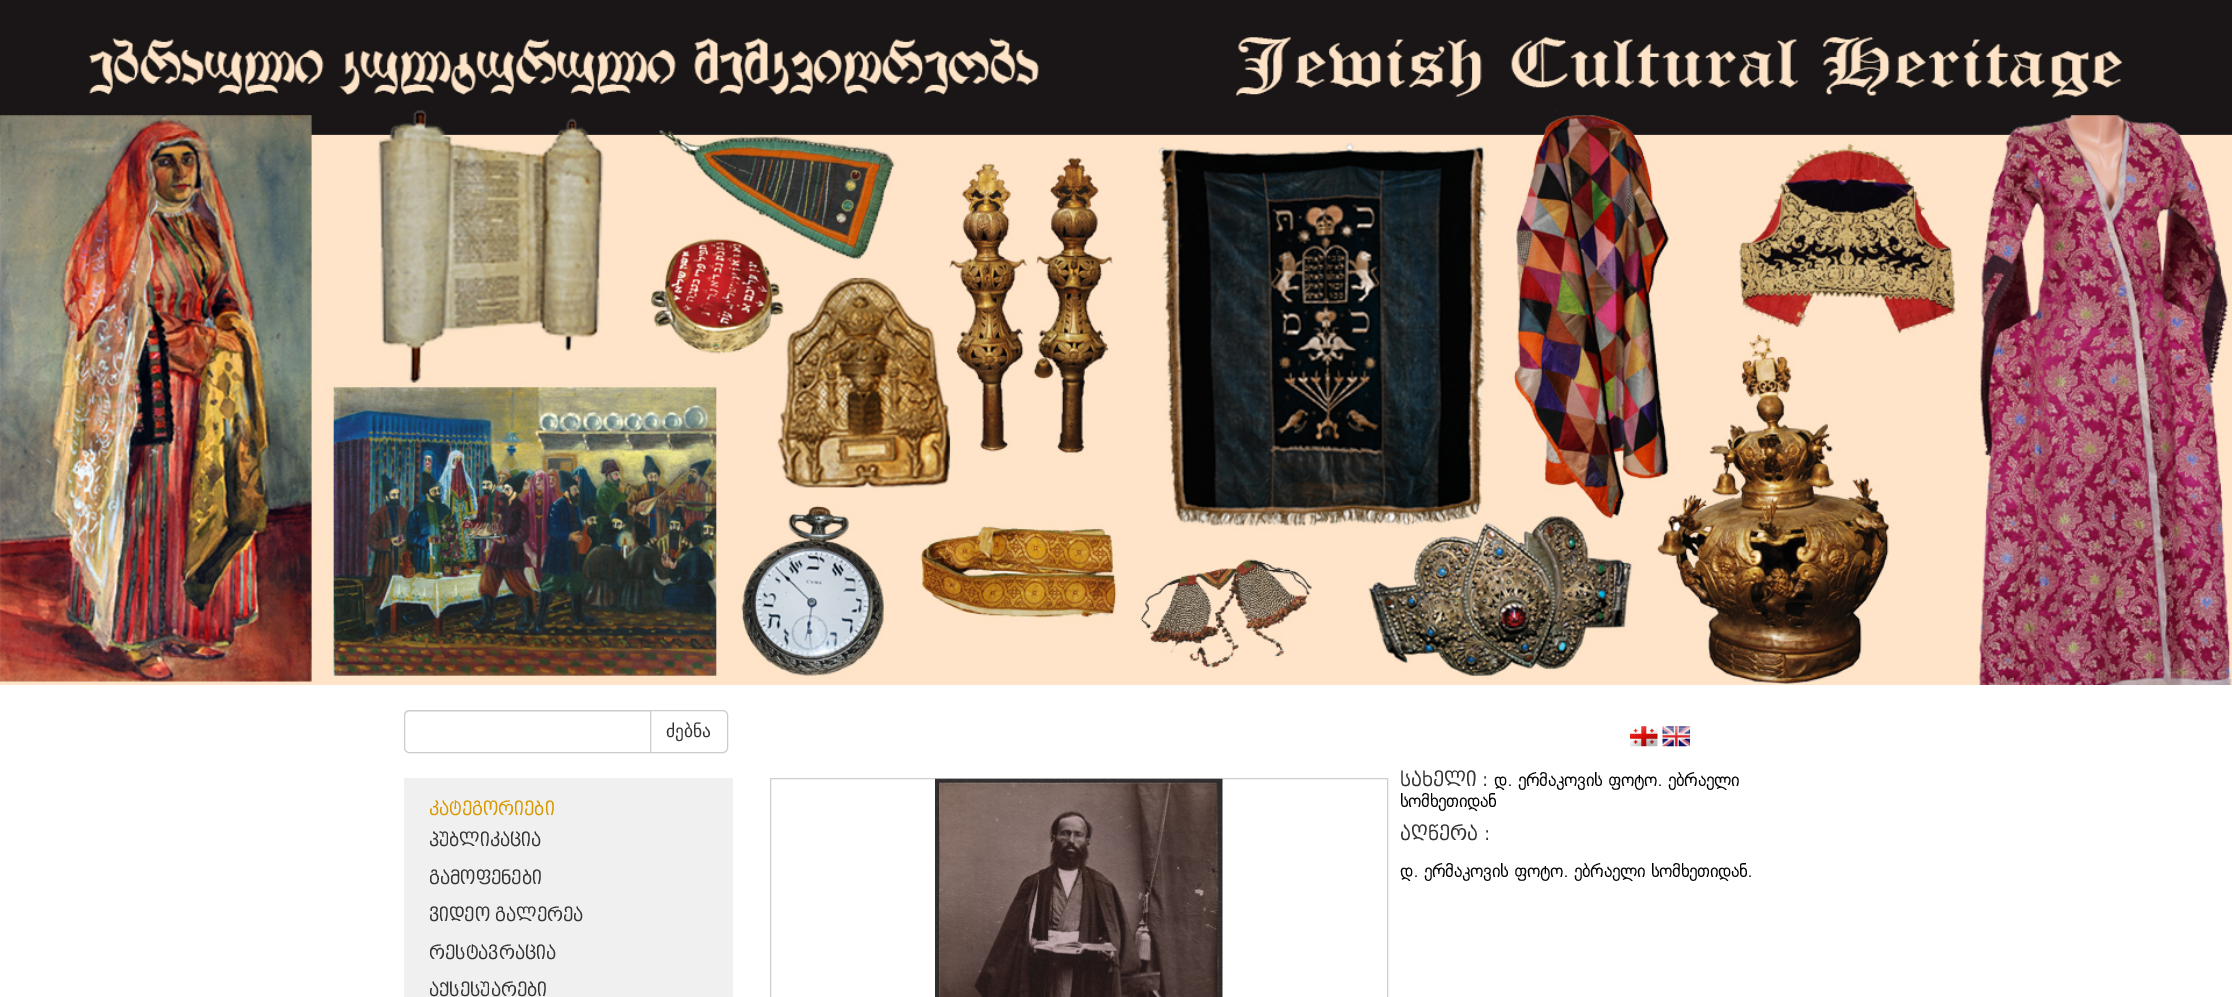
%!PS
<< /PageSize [2232 997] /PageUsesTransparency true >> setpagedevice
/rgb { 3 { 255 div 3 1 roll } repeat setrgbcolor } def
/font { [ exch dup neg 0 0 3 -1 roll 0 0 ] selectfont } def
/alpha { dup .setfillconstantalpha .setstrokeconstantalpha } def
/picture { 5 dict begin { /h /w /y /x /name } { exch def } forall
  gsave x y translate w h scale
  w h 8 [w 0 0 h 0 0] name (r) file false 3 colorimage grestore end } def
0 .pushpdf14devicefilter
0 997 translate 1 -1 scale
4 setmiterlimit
255 255 255 rgb
0 0 2232 997 rectfill
(img/1.rgb) 0 0 2232 685 picture
236 236 236 rgb
409 712 moveto 650 712 lineto 650 711 lineto 409 711 lineto 407 711 405 713 405 715 curveto 405 716 lineto 405 714 407 712 409 712 curveto closepath fill
204 204 204 rgb
409 710.5 moveto 650.5 710.5 lineto 650.5 752.5 lineto 409 752.5 lineto 406.5 752.5 404.5 750.5 404.5 748 curveto 404.5 715 lineto 404.5 712.5 406.5 710.5 409 710.5 curveto closepath stroke
255 255 255 rgb
650.5 710.5 moveto 723 710.5 lineto 725.5 710.5 727.5 712.5 727.5 715 curveto 727.5 748 lineto 727.5 750.5 725.5 752.5 723 752.5 curveto 650.5 752.5 lineto closepath gsave fill grestore
204 204 204 rgb
stroke
(img/2.rgb) 1630 726 28 21 picture
(img/3.rgb) 1662 726 28 21 picture
240 240 240 rgb
404 778 329 219 rectfill
(img/4.rgb) 935 778 288 219 picture
0.3 alpha
95 95 95 rgb
770.5 778.5 617 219 rectstroke
/DejaVuSans-Regular 17.5 font
1 alpha
52 52 52 rgb
666 737 moveto (ძებნა) show
/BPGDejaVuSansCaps-Regular 17.5 font
216 152 0 rgb
429 815 moveto (კატეგორიები) show
52 52 52 rgb
[
  [(პუბლიკაცია) 429 846]
  [(გამოფენები) 429 884]
  [(ვიდეო გალერეა) 429 921]
  [(რესტავრაცია) 429 959]
  [(აქსესუარები) 429 996]
] { aload pop moveto show } forall
/BPGDejaVuSansCaps-Regular 18.75 font
1400 786 moveto (სახელი :) show
/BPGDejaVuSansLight-Bold 17.5 font
0 0 0 rgb
1494 786 moveto (დ. ერმაკოვის ფოტო. ებრაელი) show
1400 807 moveto (სომხეთიდან) show
/BPGDejaVuSansCaps-Regular 18.75 font
52 52 52 rgb
1400 840 moveto (აღწერა :) show
/BPGDejaVuSansLight-Bold 17.5 font
0 0 0 rgb
1400 877 moveto (დ. ერმაკოვის ფოტო. ებრაელი სომხეთიდან.) show
.poppdf14devicefilter showpage
